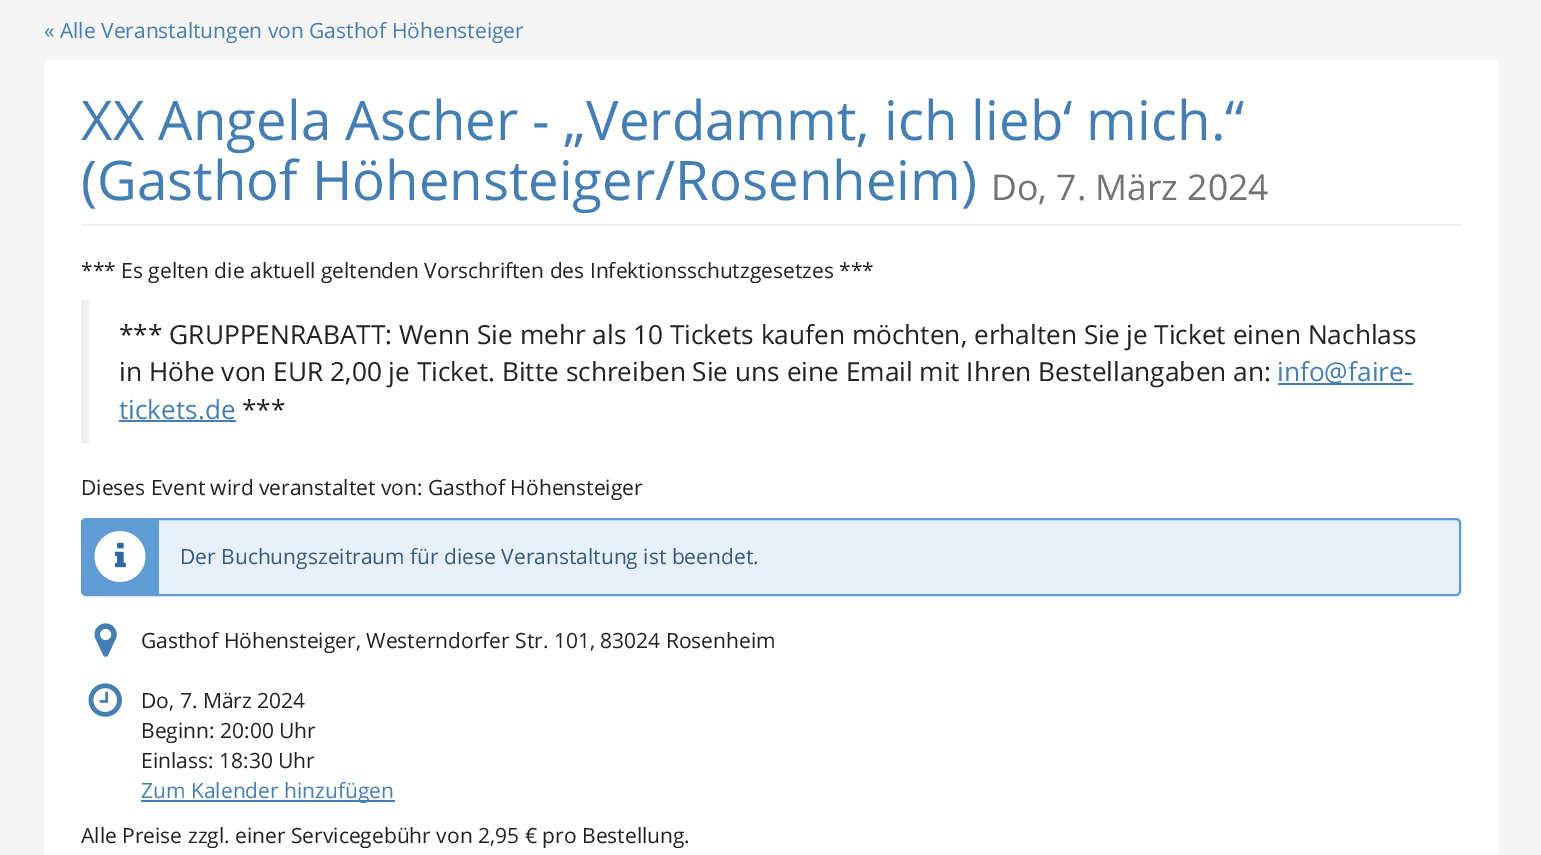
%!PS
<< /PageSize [1541 855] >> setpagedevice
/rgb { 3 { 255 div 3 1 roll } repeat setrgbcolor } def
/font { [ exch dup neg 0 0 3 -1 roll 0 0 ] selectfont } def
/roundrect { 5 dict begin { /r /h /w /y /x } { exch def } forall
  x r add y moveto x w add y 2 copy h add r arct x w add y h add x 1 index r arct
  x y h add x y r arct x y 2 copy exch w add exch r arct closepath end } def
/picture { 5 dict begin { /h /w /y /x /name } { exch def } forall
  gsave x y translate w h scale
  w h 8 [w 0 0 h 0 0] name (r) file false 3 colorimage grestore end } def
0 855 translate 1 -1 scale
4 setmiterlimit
245 245 245 rgb
0 0 1541 855 rectfill
255 255 255 rgb
44 60 1455 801 6 roundrect fill
[
  [81 224 1380 2 238 238 238]
  [81 300 8 143 238 238 238]
  [1278 383 135 2 68 126 179]
  [119 420 117 2 68 126 179]
] { aload pop rgb rectfill } forall
231 240 249 rgb
82 519 1378 76 4 roundrect gsave fill grestore
95 156 212 rgb
2 setlinewidth
stroke
83 520 76 74 rectfill
(img/1.rgb) 94 531 52 51 picture
(img/2.rgb) 94 623 23 34 picture
(img/3.rgb) 88 683 34 34 picture
68 126 179 rgb
141 800 254 2 rectfill
/OpenSans-Regular 21 font
44 38 moveto (« Alle Veranstaltungen von Gasthof Höhensteiger) show
/OpenSans-Regular 54.6 font
81 140 moveto (XX Angela Ascher - „Verdammt, ich lieb‘ mich.“) show
81 200 moveto (\(Gasthof Höhensteiger/Rosenheim\)) show
/OpenSans-Regular 35.5 font
115 115 115 rgb
991 200 moveto (Do, 7. März 2024) show
/OpenSans-Regular 21 font
34 34 34 rgb
81 278 moveto (*** Es gelten die aktuell geltenden Vorschriften des Infektionsschutzgesetzes ***) show
/OpenSans-Regular 26.25 font
119 344 moveto (*** GRUPPENRABATT: Wenn Sie mehr als 10 Tickets kaufen möchten, erhalten Sie je Ticket einen Nachlass) show
119 381 moveto (in Höhe von EUR 2,00 je Ticket. Bitte schreiben Sie uns eine Email mit Ihren Bestellangaben an:) show
68 126 179 rgb
1277 381 moveto (info@faire-) show
119 419 moveto (tickets.de) show
34 34 34 rgb
242 419 moveto (***) show
/OpenSans-Regular 21 font
81 495 moveto (Dieses Event wird veranstaltet von: Gasthof Höhensteiger) show
55 90 123 rgb
180 564 moveto (Der Buchungszeitraum für diese Veranstaltung ist beendet.) show
34 34 34 rgb
[
  [(Gasthof Höhensteiger, Westerndorfer Str. 101, 83024 Rosenheim) 141 648]
  [(Do, 7. März 2024) 141 708]
  [(Beginn: 20:00 Uhr) 141 738]
  [(Einlass: 18:30 Uhr) 141 768]
] { aload pop moveto show } forall
68 126 179 rgb
141 798 moveto (Zum Kalender hinzufügen) show
34 34 34 rgb
81 843 moveto (Alle Preise zzgl. einer Servicegebühr von 2,95 € pro Bestellung.) show
showpage
